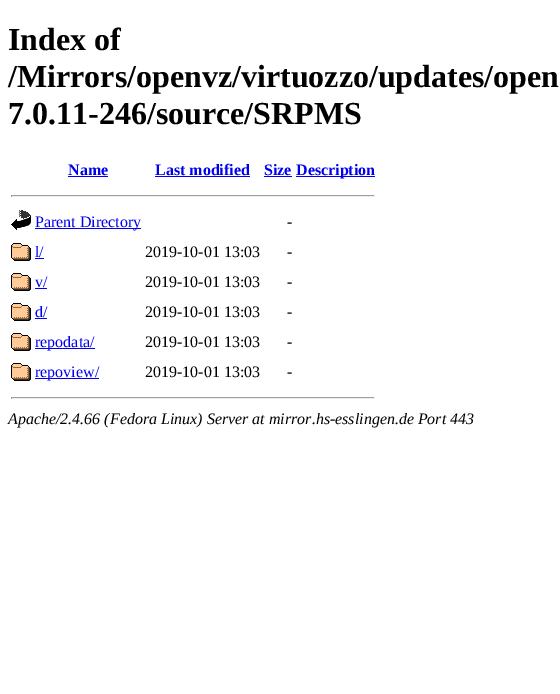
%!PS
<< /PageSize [560 694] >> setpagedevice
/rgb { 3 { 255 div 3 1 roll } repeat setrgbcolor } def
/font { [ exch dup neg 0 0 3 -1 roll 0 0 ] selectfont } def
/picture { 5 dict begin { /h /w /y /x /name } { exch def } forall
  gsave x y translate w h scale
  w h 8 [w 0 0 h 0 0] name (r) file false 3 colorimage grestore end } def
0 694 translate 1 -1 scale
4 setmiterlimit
255 255 255 rgb
0 0 560 694 rectfill
[
  [68 176 40 1 0 0 238]
  [155 176 95 1 0 0 238]
  [264 176 28 1 0 0 238]
  [296 176 79 1 0 0 238]
  [11 195 364 1 159 159 159]
  [374 195 1 2 238 238 238]
  [11 196 364 1 238 238 238]
  [11 195 1 2 159 159 159]
] { aload pop rgb rectfill } forall
(img/1.rgb) 11 210 20 20 picture
0 0 238 rgb
35 228 106 1 rectfill
(img/2.rgb) 11 243 20 18 picture
35 258 9 1 rectfill
(img/2.rgb) 11 273 20 18 picture
35 288 12 1 rectfill
(img/2.rgb) 11 303 20 18 picture
35 318 12 1 rectfill
(img/2.rgb) 11 333 20 18 picture
35 348 60 1 rectfill
(img/2.rgb) 11 363 20 18 picture
[
  [35 378 64 1 0 0 238]
  [11 397 364 1 159 159 159]
  [374 397 1 2 238 238 238]
  [11 398 364 1 238 238 238]
  [11 397 1 2 159 159 159]
] { aload pop rgb rectfill } forall
/LiberationSerif-Bold 32 font
0 0 0 rgb
[
  [(Index of) 8 50]
  [(/Mirrors/openvz/virtuozzo/updates/open) 8 87]
  [(7.0.11-246/source/SRPMS) 8 124]
] { aload pop moveto show } forall
/LiberationSerif-Bold 16 font
0 0 238 rgb
[
  [(Name) 68 175]
  [(Last modified) 155 175]
  [(Size) 264 175]
  [(Description) 296 175]
] { aload pop moveto show } forall
/LiberationSerif-Regular 16 font
35 227 moveto (Parent Directory) show
0 0 0 rgb
287 227 moveto (-) show
0 0 238 rgb
35 257 moveto (l/) show
0 0 0 rgb
145 257 moveto (2019-10-01 13:03) show
287 257 moveto (-) show
0 0 238 rgb
35 287 moveto (v/) show
0 0 0 rgb
145 287 moveto (2019-10-01 13:03) show
287 287 moveto (-) show
0 0 238 rgb
35 317 moveto (d/) show
0 0 0 rgb
145 317 moveto (2019-10-01 13:03) show
287 317 moveto (-) show
0 0 238 rgb
35 347 moveto (repodata/) show
0 0 0 rgb
145 347 moveto (2019-10-01 13:03) show
287 347 moveto (-) show
0 0 238 rgb
35 377 moveto (repoview/) show
0 0 0 rgb
145 377 moveto (2019-10-01 13:03) show
287 377 moveto (-) show
/LiberationSerif-Italic 16 font
8 424 moveto (Apache/2.4.66 \(Fedora Linux\) Server at mirror.hs-esslingen.de Port 443) show
showpage
